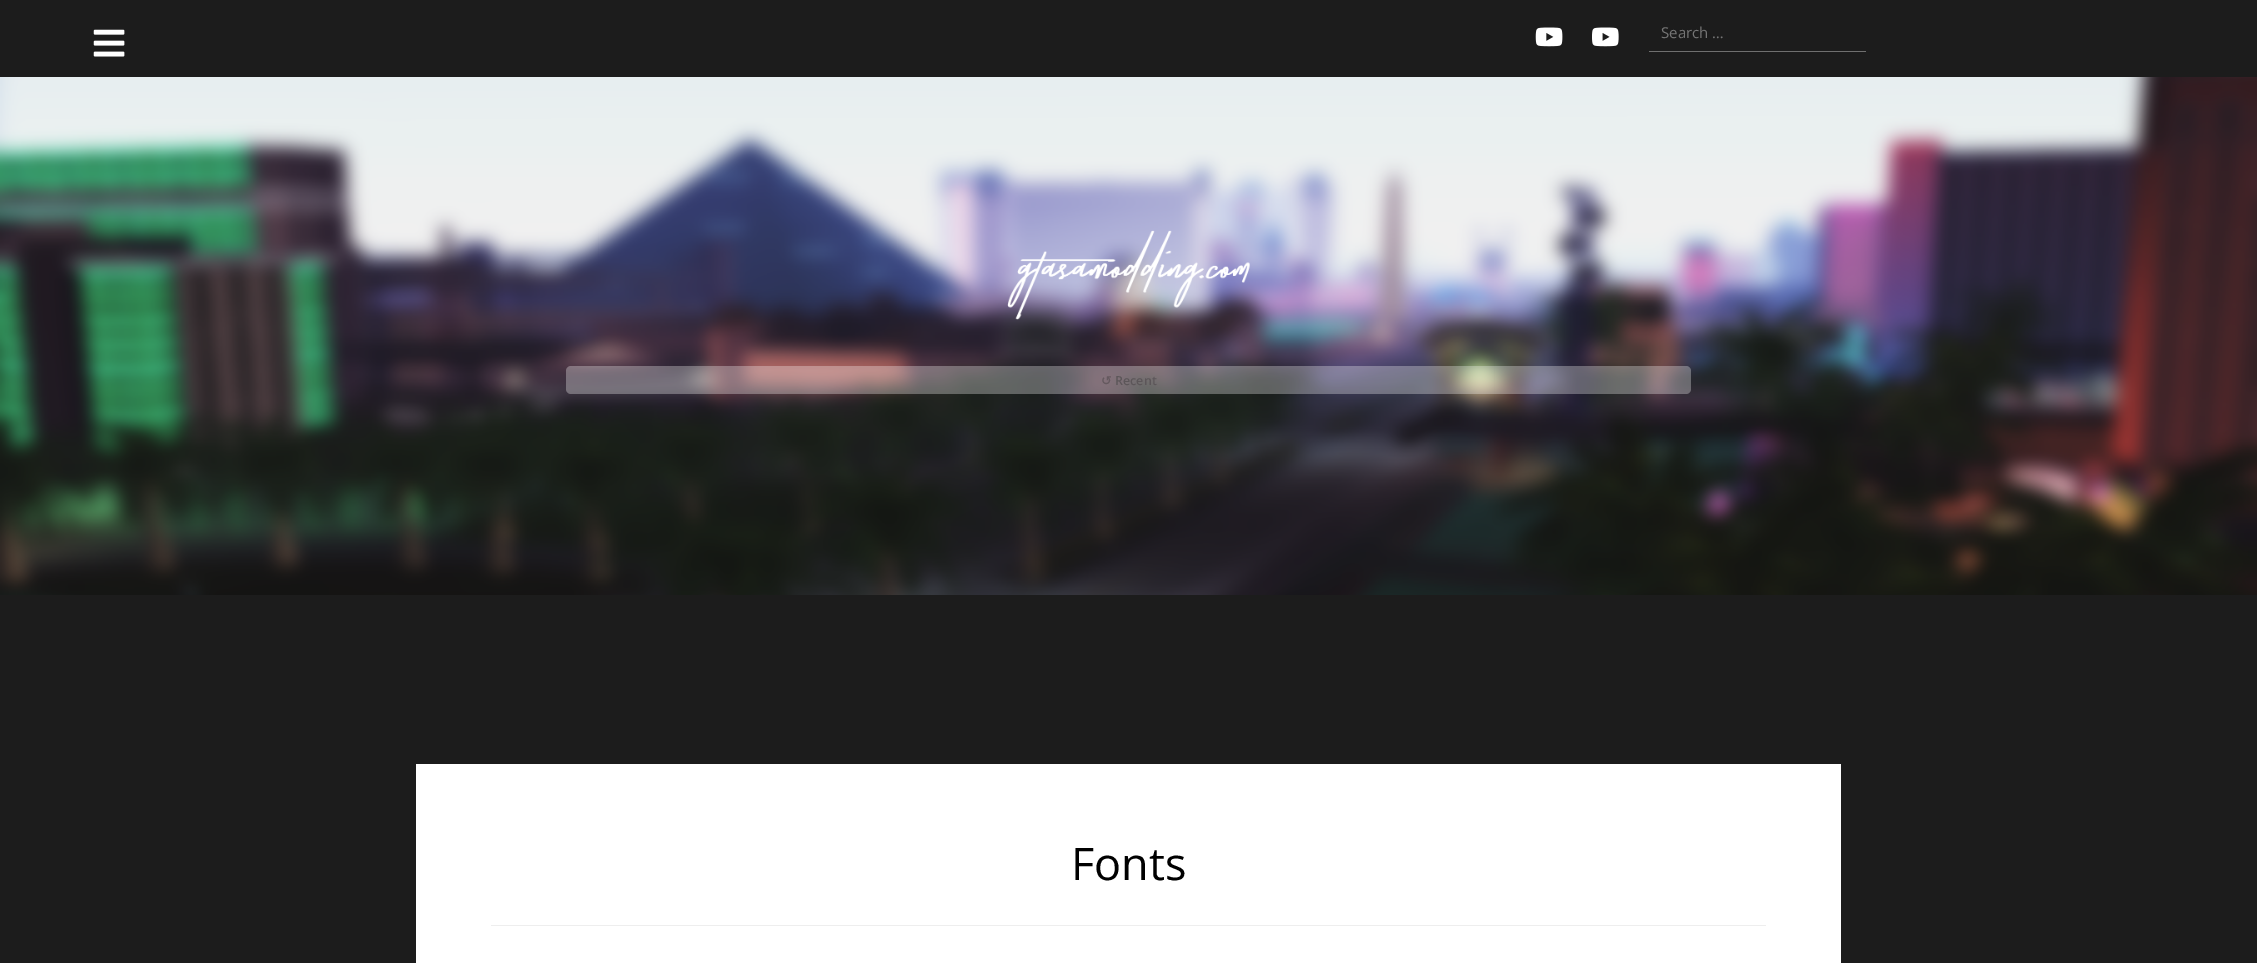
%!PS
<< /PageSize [2257 963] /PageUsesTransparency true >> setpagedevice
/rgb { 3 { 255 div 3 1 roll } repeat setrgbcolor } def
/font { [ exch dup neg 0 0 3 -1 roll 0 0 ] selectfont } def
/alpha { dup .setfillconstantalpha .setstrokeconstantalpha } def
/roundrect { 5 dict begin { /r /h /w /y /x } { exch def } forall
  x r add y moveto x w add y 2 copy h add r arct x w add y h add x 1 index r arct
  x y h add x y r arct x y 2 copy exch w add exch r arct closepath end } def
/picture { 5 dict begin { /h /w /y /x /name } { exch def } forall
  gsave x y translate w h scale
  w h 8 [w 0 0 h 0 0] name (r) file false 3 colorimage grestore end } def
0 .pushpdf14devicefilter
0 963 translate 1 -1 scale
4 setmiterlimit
28 28 28 rgb
0 0 2257 963 rectfill
(img/1.rgb) 93 29 32 28 picture
(img/2.rgb) 1535 27 28 20 picture
(img/3.rgb) 1592 27 27 20 picture
111 111 111 rgb
1649 51 217 1 rectfill
(img/4.rgb) 0 77 2257 518 picture
(img/5.rgb) 1007 230 243 90 picture
0.3 alpha
255 255 255 rgb
566 366 1125 28 5 roundrect fill
1 alpha
416 764 1425 199 rectfill
238 238 238 rgb
491 925 1275 1 rectfill
/OpenSans-Regular 15 font
117 117 117 rgb
1661 38 moveto (Search …) show
/DejaVuSans-Bold 12.5 font
101 89 95 rgb
1101 385 moveto (↺) show
/OpenSans-SemiBold 12.5 font
92 86 89 rgb
1115 385 moveto (Recent) show
/OpenSans-Regular 45 font
0 0 0 rgb
1071 880 moveto (Fonts) show
.poppdf14devicefilter showpage
